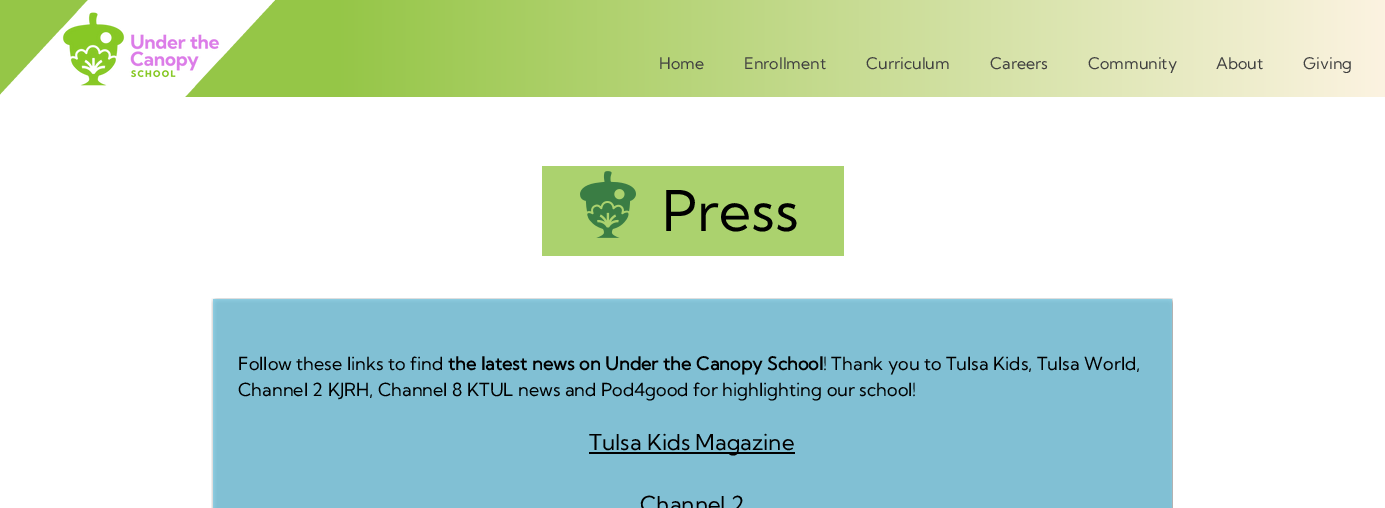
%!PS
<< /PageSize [1385 508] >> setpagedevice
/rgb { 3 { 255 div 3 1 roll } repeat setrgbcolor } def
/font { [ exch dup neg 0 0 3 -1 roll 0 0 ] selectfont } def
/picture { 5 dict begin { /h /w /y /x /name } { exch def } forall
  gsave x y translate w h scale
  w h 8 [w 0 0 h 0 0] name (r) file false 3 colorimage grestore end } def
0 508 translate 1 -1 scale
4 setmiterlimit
255 255 255 rgb
0 0 1385 508 rectfill
149 198 71 rgb
0 0 334 97 rectfill
255 255 255 rgb
185 97 moveto -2 97 lineto 88 0 lineto 275 0 lineto closepath fill
(img/1.rgb) 62 12 158 74 picture
gsave 334 0 moveto 1385 0 lineto 1385 97 lineto 334 97 lineto closepath clip newpath
<< /ShadingType 2 /ColorSpace /DeviceRGB /Coords [334 49 1385 48] /Extend [true true] /Function << /FunctionType 2 /Domain [0 1] /C0 [0.584 0.776 0.278] /C1 [0.988 0.953 0.882] /N 1 >> >> shfill grestore
171 210 110 rgb
542 166 302 90 rectfill
(img/2.rgb) 580 171 56 67 picture
(img/3.rgb) 211 298 962 210 picture
0 0 0 rgb
589 452 206 2 rectfill
/KumbhSans-Regular 16 font
64 64 64 rgb
[
  [(Home) 659 69]
  [(Enrollment) 744 69]
  [(Curriculum) 866 69]
  [(Careers) 990 69]
  [(Community) 1088 69]
  [(About) 1216 69]
  [(Giving) 1303 69]
] { aload pop moveto show } forall
/KumbhSans-Regular 56 font
0 0 0 rgb
662 231 moveto (Press) show
/KumbhSans-Regular 18 font
238 370 moveto (Follow these links to find) show
/KumbhSans-Bold 18 font
448 370 moveto (the) show
481 370 moveto 0.5 0 32 (latest news on Under the Canopy School) widthshow
/KumbhSans-Regular 18 font
823 370 moveto (! Thank you to Tulsa Kids, Tulsa World,) show
238 396 moveto (Channel 2 KJRH, Channel 8 KTUL news and Pod4good for highlighting our school!) show
/KumbhSans-Regular 22 font
589 450 moveto (Tulsa Kids Magazine) show
640 512 moveto (Channel 2) show
showpage
